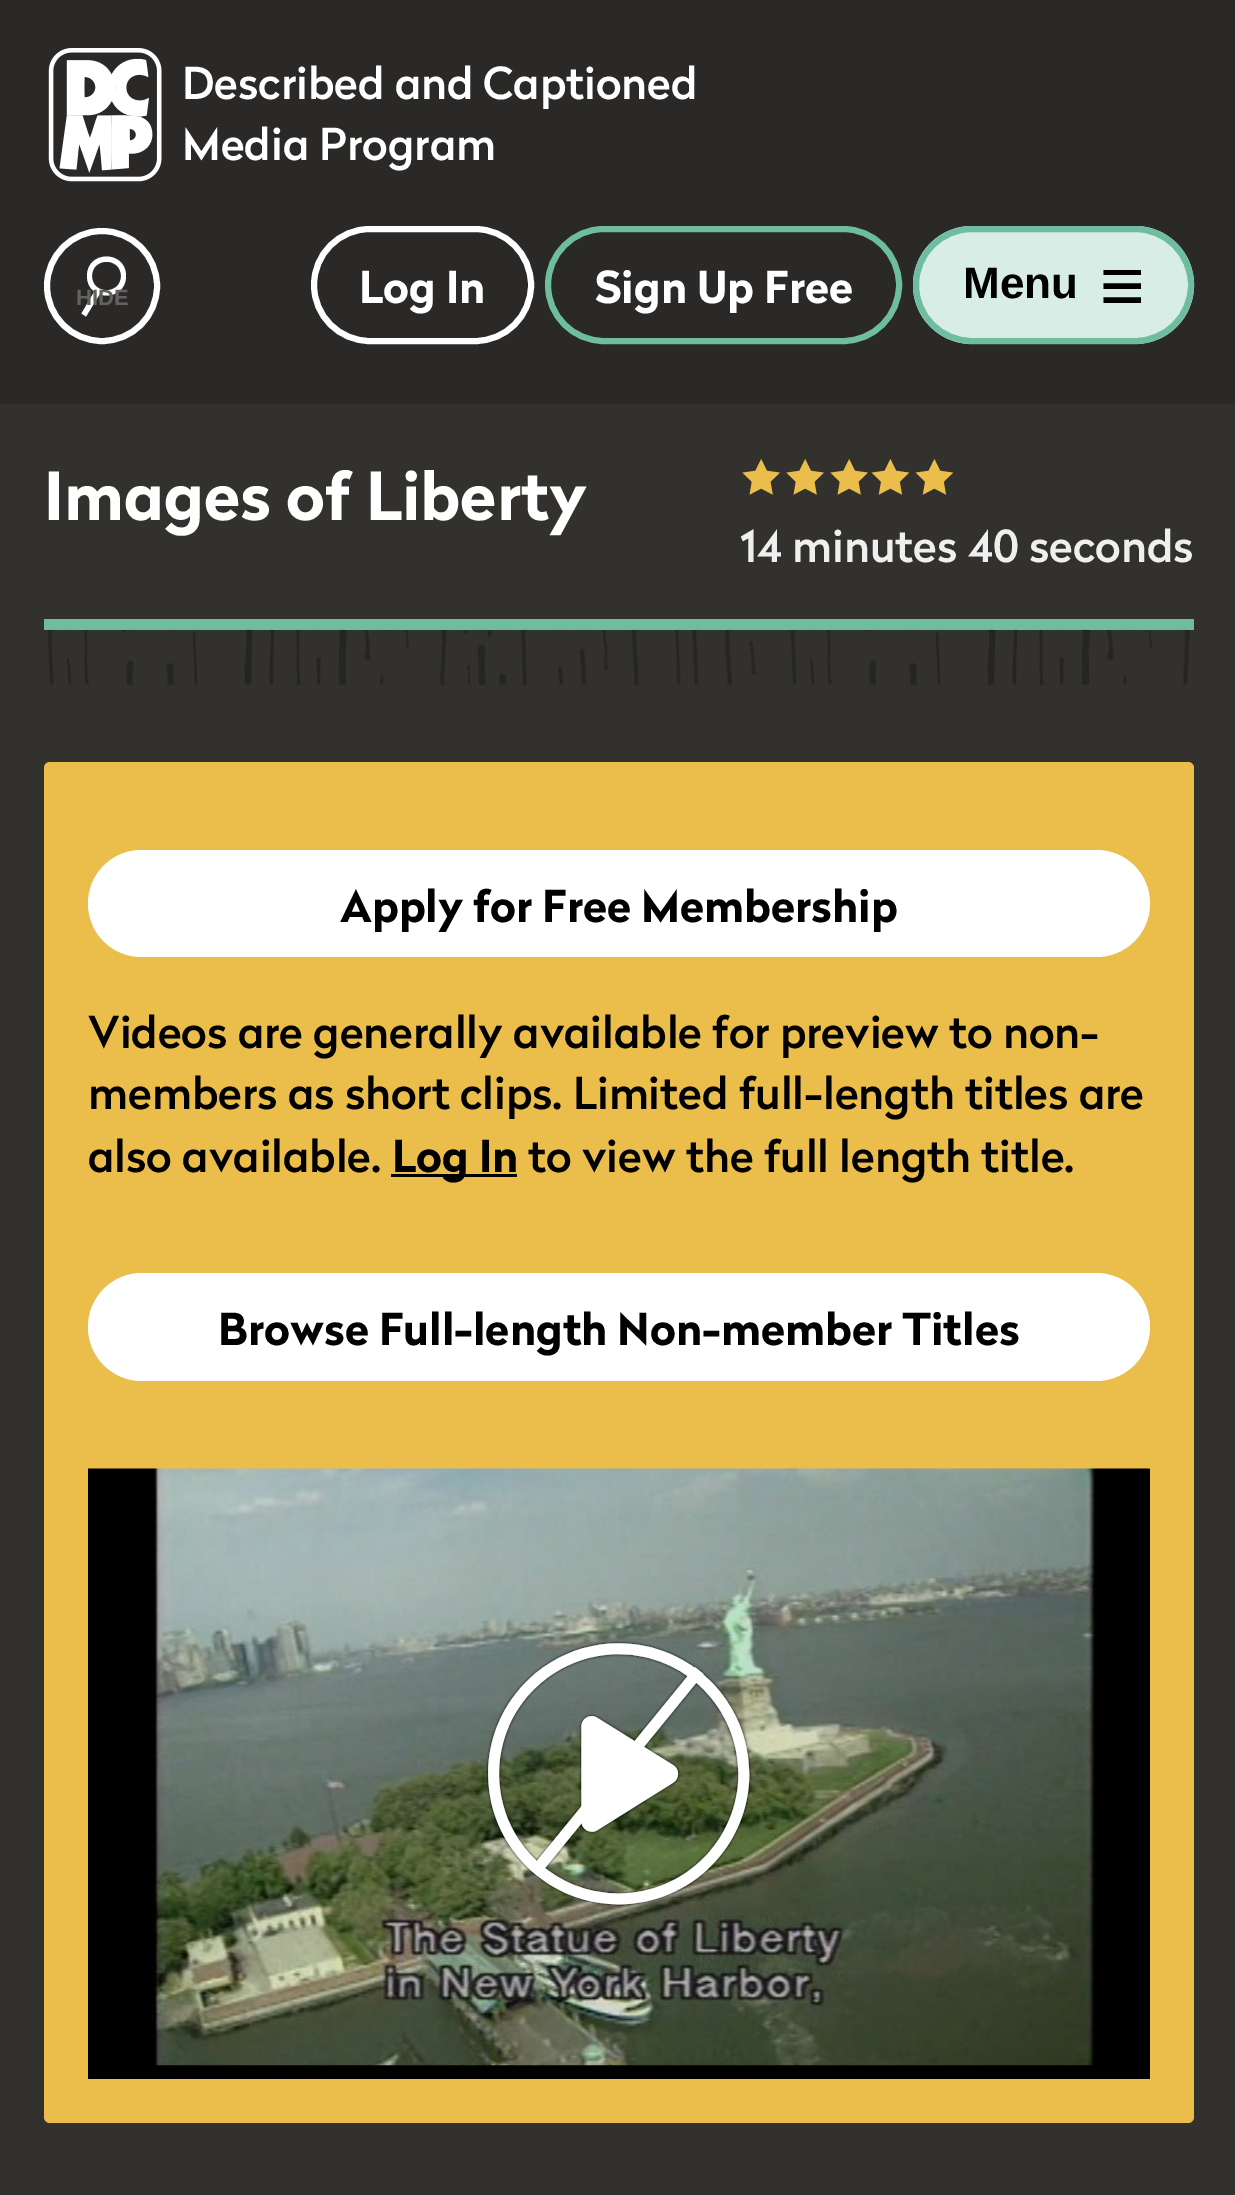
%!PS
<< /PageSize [1235 2195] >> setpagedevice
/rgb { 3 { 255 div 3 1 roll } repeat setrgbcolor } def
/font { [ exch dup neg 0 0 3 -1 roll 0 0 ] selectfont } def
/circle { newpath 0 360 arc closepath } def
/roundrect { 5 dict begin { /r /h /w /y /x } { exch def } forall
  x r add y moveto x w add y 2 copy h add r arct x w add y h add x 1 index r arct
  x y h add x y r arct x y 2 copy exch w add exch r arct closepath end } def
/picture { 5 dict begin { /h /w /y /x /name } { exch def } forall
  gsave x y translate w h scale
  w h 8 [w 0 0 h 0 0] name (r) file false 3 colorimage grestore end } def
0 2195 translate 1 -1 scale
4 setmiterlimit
50 49 46 rgb
0 0 1235 2195 rectfill
43 41 39 rgb
0 0 1235 404 rectfill
(img/1.rgb) 48 48 114 134 picture
255 255 255 rgb
126 276 moveto 126 250 87 250 87 276 curveto 87 302 126 302 126 276 curveto closepath 92 276 moveto 92 257 121 257 121 276 curveto 121 295 92 295 92 276 curveto closepath eofill
81.5 313.5 moveto 86 316.5 lineto 100 293.5 lineto 95 290.5 lineto closepath eofill
6 setlinewidth
102 286 55 circle stroke
314 229 217 112 56 roundrect stroke
110 189 160 rgb
548 229 351 112 56 roundrect stroke
215 237 229 rgb
913 226 281 118 59 roundrect fill
gsave
1103 270 38 33 rectclip
0 0 0 rgb
5.5 setlinewidth
1103.5 272 moveto 1141 272 lineto 1103.5 286 moveto 1141 286 lineto 1103.5 300 moveto 1141 300 lineto stroke
grestore
110 189 160 rgb
916 229 275 112 56 roundrect stroke
44 619 1150 11 rectfill
(img/2.rgb) 742 459 38 36 picture
(img/2.rgb) 786 459 38 36 picture
(img/2.rgb) 830 459 38 36 picture
(img/3.rgb) 871 459 39 36 picture
(img/3.rgb) 915 459 39 36 picture
(img/4.rgb) 47 629 1143 56 picture
235 190 75 rgb
44 762 1150 1361 6 roundrect fill
255 255 255 rgb
88 850 1062 107 53.5 roundrect fill
1 1 1 rgb
391 1174 126 3 rectfill
255 255 255 rgb
88 1273 1062 108 54 roundrect fill
0 0 0 rgb
88 1469 1062 610 rectfill
(img/5.rgb) 88 1468 1062 598 picture
(img/6.rgb) 486 1641 266 266 picture
/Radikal-Medium 44 font
255 255 255 rgb
182 99 moveto (Described and Captioned) show
182 160 moveto (Media Program) show
/LiberationSans-Bold 22 font
99 98 96 rgb
76 305 moveto (HIDE) show
/Radikal-Bold 44 font
255 255 255 rgb
359 303 moveto (Log In) show
595 303 moveto (Sign Up Free) show
/LiberationSans-Bold 44 font
1 1 1 rgb
963 298 moveto (Menu) show
/Radikal-Bold 66 font
255 255 255 rgb
44 520 moveto (Images of Liberty) show
/Radikal-Medium 44 font
239 239 239 rgb
740 562 moveto (14 minutes 40 seconds) show
/Radikal-Bold 44 font
1 1 1 rgb
340 922 moveto (Apply for Free Membership) show
/Radikal-Medium 44 font
[
  [(Videos are generally available for preview to non-) 88 1048]
  [(members as short clips. Limited full-length titles are) 88 1109]
  [(also available.) 88 1172]
] { aload pop moveto show } forall
/Radikal-Bold 44 font
392 1172 moveto (Log In) show
/Radikal-Medium 44 font
528 1172 moveto (to view the full length title.) show
/Radikal-Bold 44 font
218 1345 moveto (Browse Full-length Non-member Titles) show
showpage
